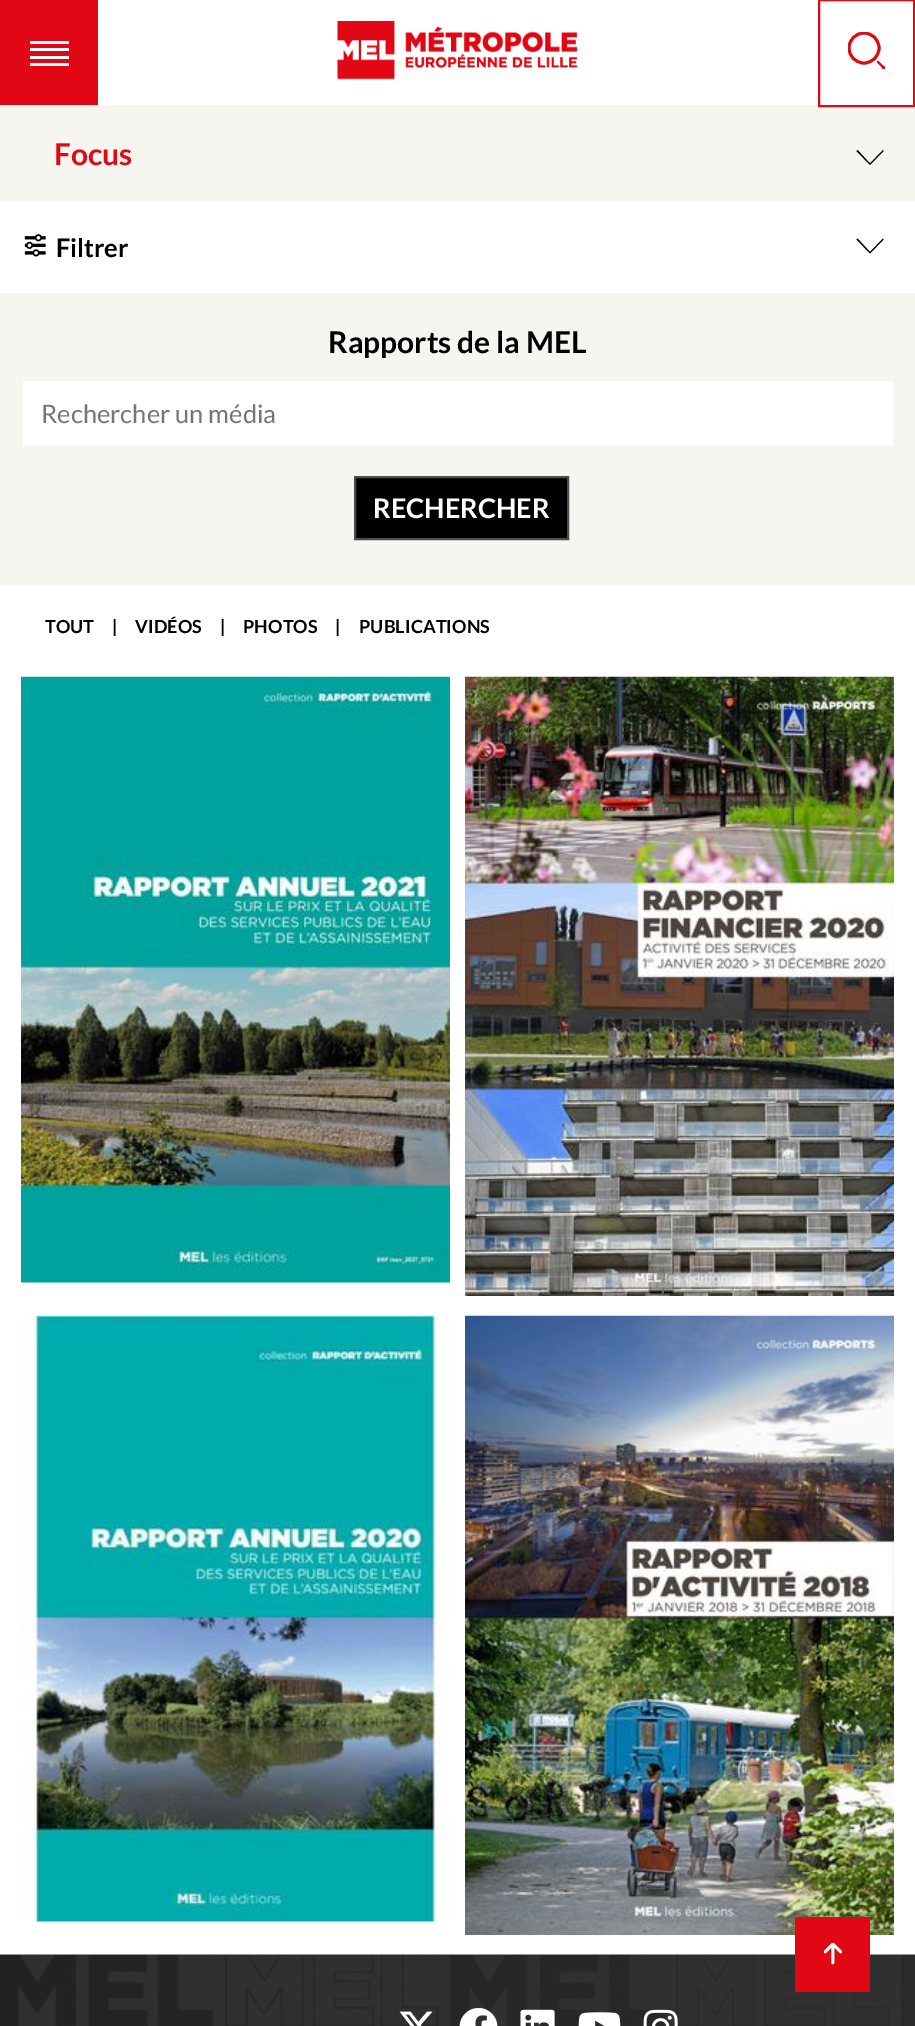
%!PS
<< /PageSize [915 2026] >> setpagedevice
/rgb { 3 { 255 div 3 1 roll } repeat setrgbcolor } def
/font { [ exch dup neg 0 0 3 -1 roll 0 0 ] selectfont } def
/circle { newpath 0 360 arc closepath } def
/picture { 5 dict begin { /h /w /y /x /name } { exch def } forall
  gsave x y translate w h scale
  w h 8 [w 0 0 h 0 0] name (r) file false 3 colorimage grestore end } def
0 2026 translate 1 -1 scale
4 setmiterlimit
255 255 255 rgb
0 0 915 2026 rectfill
[
  [0 0 98 105 226 7 20]
  [30 41 39 3 255 255 255]
  [30 48 39 3 255 255 255]
  [30 56 39 3 255 255 255]
  [30 63 39 3 255 255 255]
] { aload pop rgb rectfill } forall
(img/1.rgb) 337 21 241 59 picture
247 245 240 rgb
0 105 915 96 rectfill
226 7 20 rgb
2 setlinewidth
819 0 95 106 rectstroke
gsave
848 32 37 37 rectclip
876.5 62 moveto 878 60.5 lineto 882.5 65 lineto 883.5 65.5 886.5 67.5 885 69 curveto 883.5 70.5 881.5 67.5 881 66.5 curveto closepath eofill
2.9 setlinewidth
864 48 15 circle stroke
grestore
0 0 0 rgb
857.5 150 moveto 870 163.5 lineto 883 150 lineto 883.5 151 lineto 870 165 lineto 856.5 151 lineto closepath fill
(img/2.rgb) 24 234 22 23 picture
857.5 238.5 moveto 870 252 lineto 883 238.5 lineto 883.5 239.5 lineto 870 253.5 lineto 856.5 239.5 lineto closepath fill
247 245 240 rgb
0 293 915 292 rectfill
255 255 255 rgb
23 381 870 65 rectfill
0 0 0 rgb
355 477 moveto 568 477 lineto 568 539 lineto 355 539 lineto closepath gsave fill grestore
76 76 76 rgb
stroke
(img/3.rgb) 21 676 429 607 picture
(img/4.rgb) 465 676 429 620 picture
(img/5.rgb) 21 1315 429 607 picture
(img/6.rgb) 465 1315 429 620 picture
(img/7.rgb) 0 1954 915 72 picture
226 7 20 rgb
795 1917 75 75 rectfill
(img/8.rgb) 824 1943 18 22 picture
(img/9.rgb) 399 2011 34 15 picture
(img/10.rgb) 459 2008 39 18 picture
(img/11.rgb) 520 2009 35 17 picture
(img/12.rgb) 578 2012 43 14 picture
(img/13.rgb) 643 2009 35 17 picture
/Lato-Bold 30 font
54 165 moveto (Focus) show
/Lato-Bold 25.5 font
0 0 0 rgb
56 257 moveto (Filtrer) show
/Lato-Bold 30 font
328 353 moveto (Rapports de la MEL) show
/Lato-Regular 25.5 font
117 117 117 rgb
41 423 moveto (Rechercher un média) show
/Lato-Bold 27 font
255 255 255 rgb
373 518 moveto (RECHERCHER) show
/Lato-Bold 18 font
0 0 0 rgb
45 633 moveto 0.1 0 (TOUT) ashow
112 633 moveto 0.1 0 (|) ashow
135 633 moveto 0.1 0 (VIDÉOS) ashow
220 633 moveto 0.1 0 (|) ashow
243 633 moveto 0.1 0 (PHOTOS) ashow
335 633 moveto 0.1 0 (|) ashow
359 633 moveto 0.1 0 (PUBLICATIONS) ashow
showpage
